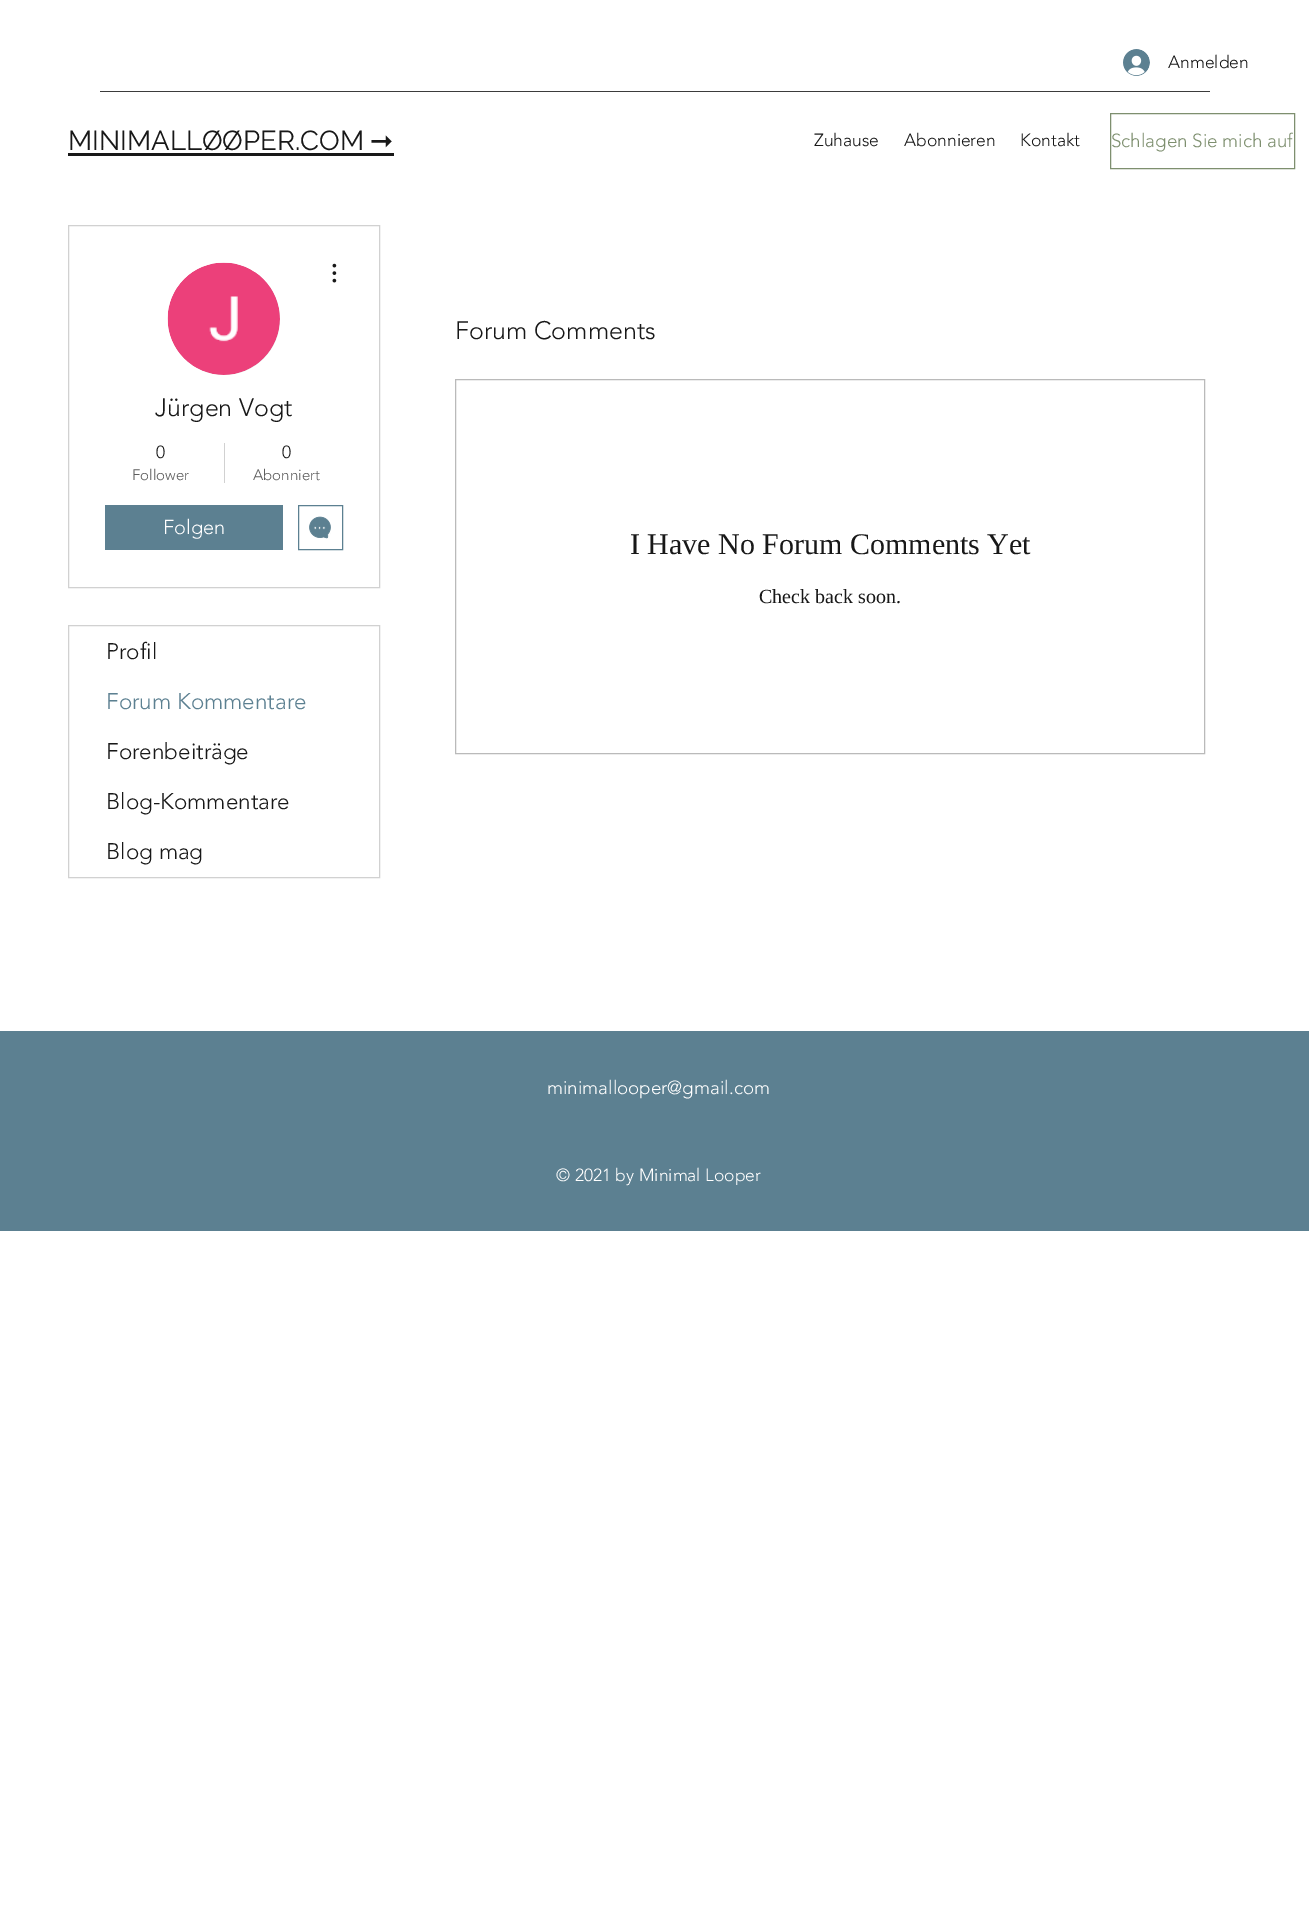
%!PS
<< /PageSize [1309 1915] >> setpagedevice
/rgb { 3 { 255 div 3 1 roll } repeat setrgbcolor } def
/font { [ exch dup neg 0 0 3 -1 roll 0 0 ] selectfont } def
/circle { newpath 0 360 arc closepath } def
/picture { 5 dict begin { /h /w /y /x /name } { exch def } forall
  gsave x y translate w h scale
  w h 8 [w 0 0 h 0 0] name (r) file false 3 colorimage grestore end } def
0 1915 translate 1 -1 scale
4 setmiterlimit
255 255 255 rgb
0 0 1309 1915 rectfill
(img/1.rgb) 1123 49 27 27 picture
59 59 59 rgb
100 91 1110 1 rectfill
24 24 24 rgb
68 153 326 3 rectfill
126 143 111 rgb
1110.5 113.5 184 55 rectstroke
209 209 209 rgb
68.5 225.5 311 362 rectstroke
216 216 216 rgb
224 319 56 circle fill
(img/2.rgb) 167 262 113 113 picture
(img/3.rgb) 332 263 5 20 picture
209 209 209 rgb
224 443 1 40 rectfill
92 128 145 rgb
105 505 178 45 rectfill
298.5 505.5 44 44 rectstroke
(img/4.rgb) 309 516 22 23 picture
209 209 209 rgb
68.5 625.5 311 252 rectstroke
186 186 186 rgb
455.5 379.5 749 374 rectstroke
92 128 145 rgb
0 1031 1309 200 rectfill
/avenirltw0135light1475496-Light 17.5 font
24 24 24 rgb
1168 68 moveto (Anmelden) show
/Raleway-Regular 27.5 font
68 150 moveto (MINIMALLØØPER.COM) show
/DejaVuSans-Regular 27.5 font
370 150 moveto (➞) show
/avenirltw0135light1475496-Light 17.5 font
[
  [(Zuhause) 814 146]
  [(Abonnieren) 904 146]
  [(Kontakt) 1020 146]
] { aload pop moveto show } forall
/avenirltw0135light1475496-Light 18.75 font
126 143 111 rgb
1111 147 moveto (Schlagen Sie mich auf) show
/avenirltw0135light1475496-Light 25 font
24 24 24 rgb
155 416 moveto (Jürgen Vogt) show
/avenirltw0135light1475496-Light 17.5 font
156 458 moveto (0) show
/avenirltw0135light1475496-Light 15 font
93 93 93 rgb
132 480 moveto (Follower) show
/avenirltw0135light1475496-Light 17.5 font
24 24 24 rgb
282 458 moveto (0) show
/avenirltw0135light1475496-Light 15 font
93 93 93 rgb
253 480 moveto (Abonniert) show
/avenirltw0135light1475496-Light 20 font
255 255 255 rgb
163 534 moveto (Folgen) show
/avenirltw0135light1475496-Light 22.5 font
24 24 24 rgb
106 659 moveto (Profil) show
92 128 145 rgb
106 709 moveto (Forum Kommentare) show
24 24 24 rgb
[
  [(Forenbeiträge) 106 759]
  [(Blog-Kommentare) 106 809]
  [(Blog mag) 106 859]
] { aload pop moveto show } forall
/avenirltw0135light1475496-Light 25 font
455 339 moveto (Forum Comments) show
/LiberationSerif-Regular 30 font
630 554 moveto (I Have No Forum Comments Yet) show
/LiberationSerif-Regular 20 font
759 603 moveto (Check back soon.) show
/avenirltw0135light1475496-Light 18.75 font
255 255 255 rgb
547 1094 moveto (minimallooper@gmail.com) show
/avenirltw0135light1475496-Light 17.5 font
556 1181 moveto (© 2021 by Minimal Looper) show
showpage
